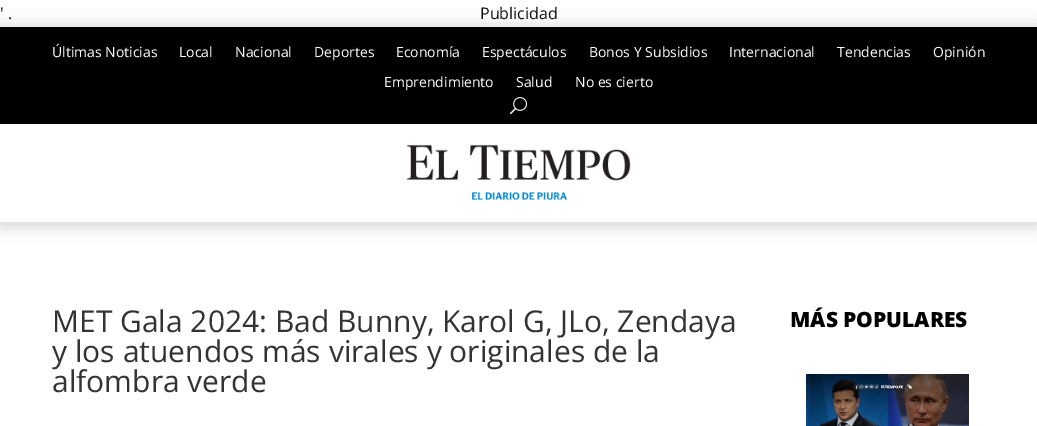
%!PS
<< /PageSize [1037 426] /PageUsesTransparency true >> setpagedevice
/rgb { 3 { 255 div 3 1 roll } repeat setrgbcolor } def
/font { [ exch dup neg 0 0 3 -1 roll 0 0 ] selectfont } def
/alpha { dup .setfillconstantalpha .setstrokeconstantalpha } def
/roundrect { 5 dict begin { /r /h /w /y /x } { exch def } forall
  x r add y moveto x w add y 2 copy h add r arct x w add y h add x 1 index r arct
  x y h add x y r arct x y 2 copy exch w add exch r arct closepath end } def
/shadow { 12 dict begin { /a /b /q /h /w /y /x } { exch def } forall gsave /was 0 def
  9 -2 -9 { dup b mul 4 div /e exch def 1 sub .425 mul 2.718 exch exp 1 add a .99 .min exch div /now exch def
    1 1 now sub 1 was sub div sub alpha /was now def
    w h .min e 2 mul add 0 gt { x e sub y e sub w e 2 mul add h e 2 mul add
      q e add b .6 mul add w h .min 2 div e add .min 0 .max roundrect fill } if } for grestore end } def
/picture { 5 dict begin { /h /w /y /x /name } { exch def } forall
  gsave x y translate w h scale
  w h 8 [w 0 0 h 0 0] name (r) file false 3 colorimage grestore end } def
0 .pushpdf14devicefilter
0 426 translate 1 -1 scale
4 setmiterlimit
255 255 255 rgb
0 0 1037 426 rectfill
gsave
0 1 moveto 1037 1 lineto 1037 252 lineto 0 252 lineto closepath 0 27 moveto 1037 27 lineto 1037 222 lineto 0 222 lineto closepath eoclip newpath
0 0 0 rgb
0 29 1037 195 0 9 0.22 shadow
grestore
0 0 0 rgb
0 27 1037 97 rectfill
(img/1.rgb) 510 97 17 18 picture
(img/2.rgb) 406 144 225 57 picture
(img/3.rgb) 806 374 163 52 picture
/OpenSans-Regular 16 font
17 17 17 rgb
0 19 moveto (' .) show
480 19 moveto (Publicidad) show
/OpenSans-Regular 14 font
255 255 255 rgb
[
  [(Últimas Noticias) 52 57]
  [(Local) 179 57]
  [(Nacional) 235 57]
  [(Deportes) 314 57]
  [(Economía) 396 57]
  [(Espectáculos) 482 57]
  [(Bonos Y Subsidios) 589 57]
  [(Internacional) 729 57]
  [(Tendencias) 837 57]
  [(Opinión) 933 57]
  [(Emprendimiento) 384 87]
  [(Salud) 516 87]
  [(No es cierto) 575 87]
] { aload pop moveto show } forall
/OpenSans-Regular 30 font
51 51 51 rgb
[
  [(MET Gala 2024: Bad Bunny, Karol G, JLo, Zendaya) 52 332]
  [(y los atuendos más virales y originales de la) 52 362]
  [(alfombra verde) 52 392]
] { aload pop moveto show } forall
/OpenSans-ExtraBold 21 font
0 0 0 rgb
790 327 moveto (MÁS POPULARES) show
.poppdf14devicefilter showpage
